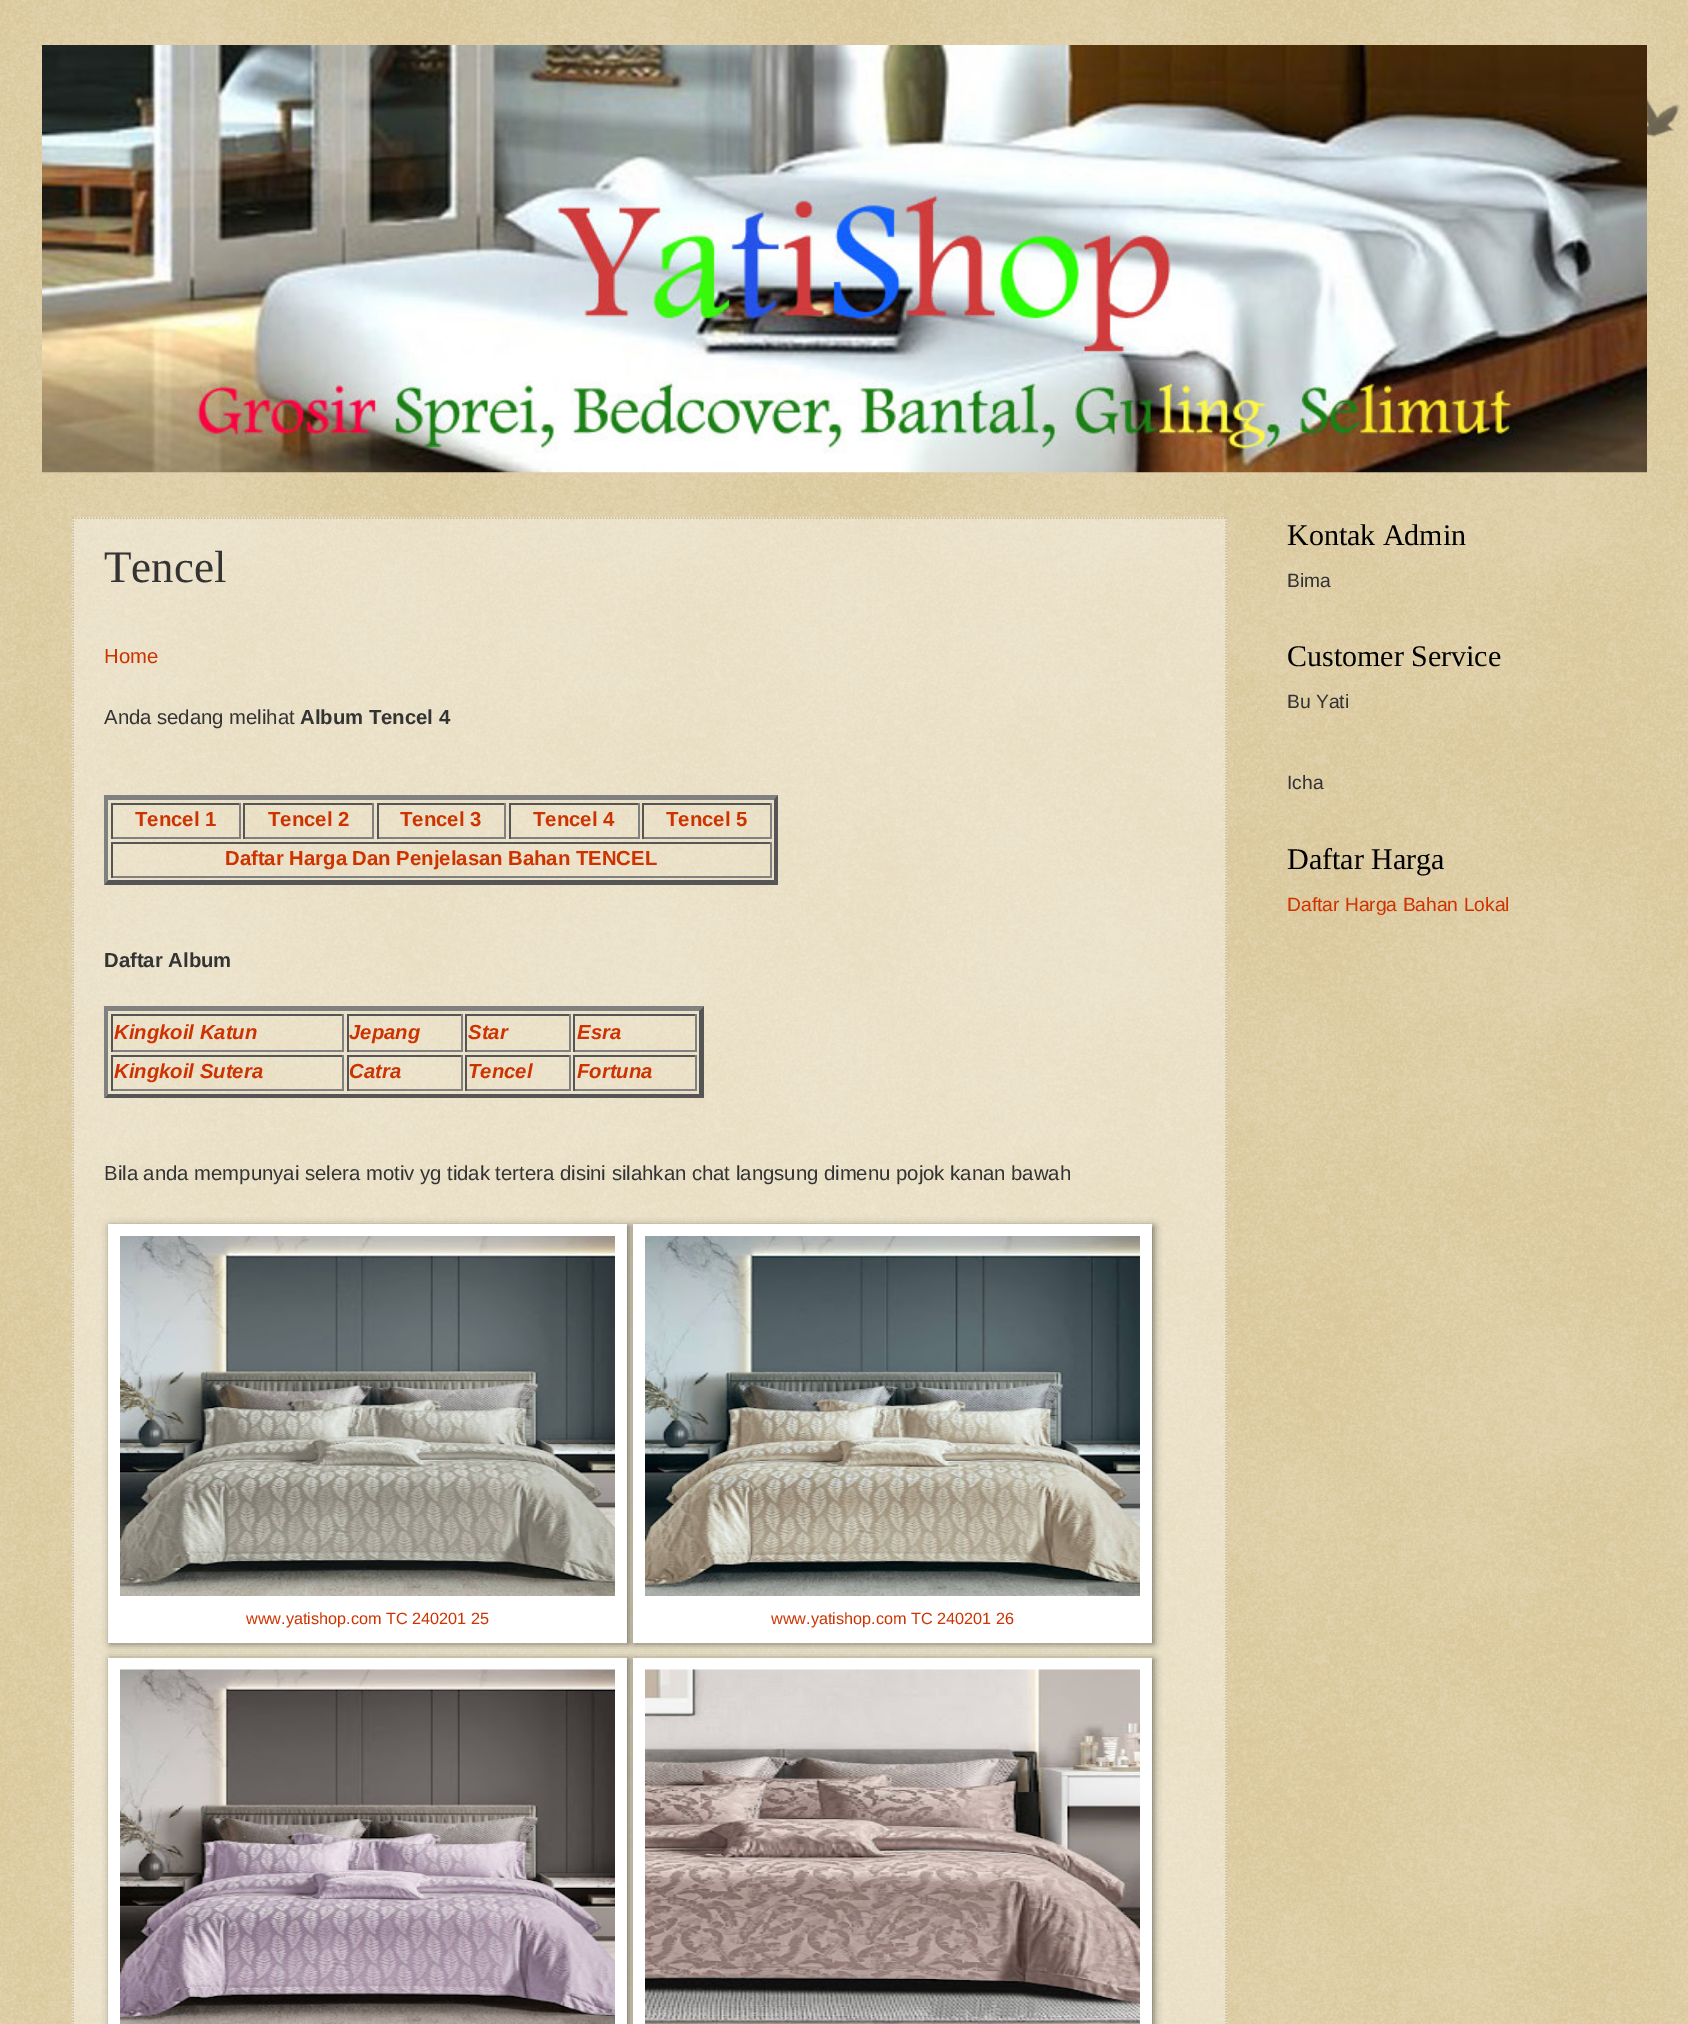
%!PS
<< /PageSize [1688 2024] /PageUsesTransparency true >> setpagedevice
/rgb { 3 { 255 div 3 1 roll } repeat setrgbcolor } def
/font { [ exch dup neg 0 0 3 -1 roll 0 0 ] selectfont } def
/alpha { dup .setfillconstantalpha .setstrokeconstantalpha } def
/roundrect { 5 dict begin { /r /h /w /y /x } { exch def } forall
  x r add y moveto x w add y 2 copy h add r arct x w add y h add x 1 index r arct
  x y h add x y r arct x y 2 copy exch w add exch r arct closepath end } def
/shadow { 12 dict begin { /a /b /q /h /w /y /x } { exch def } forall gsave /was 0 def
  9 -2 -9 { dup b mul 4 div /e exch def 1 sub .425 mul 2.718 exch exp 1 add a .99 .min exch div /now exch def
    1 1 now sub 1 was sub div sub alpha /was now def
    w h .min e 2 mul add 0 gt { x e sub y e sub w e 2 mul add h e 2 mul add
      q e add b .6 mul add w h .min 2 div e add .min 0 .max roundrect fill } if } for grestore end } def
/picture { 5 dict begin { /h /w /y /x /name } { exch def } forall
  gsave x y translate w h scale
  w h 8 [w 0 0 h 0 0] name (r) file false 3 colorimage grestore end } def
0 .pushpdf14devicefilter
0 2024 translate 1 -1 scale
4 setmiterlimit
192 161 84 rgb
0 0 1688 2024 rectfill
(img/1.rgb) 0 0 1688 2024 picture
(img/2.rgb) 1647 96 34 41 picture
(img/3.rgb) 42 45 1605 428 picture
0.4 alpha
255 255 255 rgb
72 517 1155 1507 rectfill
1 alpha
204 187 153 rgb
1.5 setlinewidth
[1.5 1.5] 0 setdash
72 518 moveto 1227 518 lineto stroke
1226 517.5 moveto 1226 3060 lineto stroke
73 517.5 moveto 73 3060 lineto stroke
128 128 128 rgb
104 795 moveto 778 795 lineto 774 800 lineto 108 800 lineto closepath fill
85 85 85 rgb
778 795 moveto 778 885 lineto 774 880 lineto 774 800 lineto closepath fill
778 885 moveto 104 885 lineto 108 880 lineto 774 880 lineto closepath fill
128 128 128 rgb
104 885 moveto 104 795 lineto 108 800 lineto 108 880 lineto closepath fill
[
  [111 803 129 2 85 85 85]
  [239 803 2 36 128 128 128]
  [111 837 129 2 128 128 128]
  [111 803 2 36 85 85 85]
  [243 803 131 2 85 85 85]
  [372 803 2 36 128 128 128]
  [243 837 131 2 128 128 128]
  [243 803 2 36 85 85 85]
  [377 803 129 2 85 85 85]
  [504 803 2 36 128 128 128]
  [377 837 129 2 128 128 128]
  [377 803 2 36 85 85 85]
  [509 803 130 2 85 85 85]
  [638 803 2 36 128 128 128]
  [509 837 130 2 128 128 128]
  [509 803 2 36 85 85 85]
  [642 803 129 2 85 85 85]
  [770 803 2 36 128 128 128]
  [642 837 129 2 128 128 128]
  [642 803 2 36 85 85 85]
  [111 842 660 2 85 85 85]
  [770 842 2 36 128 128 128]
  [111 876 660 2 128 128 128]
  [111 842 2 36 85 85 85]
] { aload pop rgb rectfill } forall
128 128 128 rgb
104 1006 moveto 704 1006 lineto 699 1011 lineto 108 1011 lineto closepath fill
85 85 85 rgb
704 1006 moveto 704 1098 lineto 699 1094 lineto 699 1011 lineto closepath fill
704 1098 moveto 104 1098 lineto 108 1094 lineto 699 1094 lineto closepath fill
128 128 128 rgb
104 1098 moveto 104 1006 lineto 108 1011 lineto 108 1094 lineto closepath fill
[
  [111 1014 233 2 85 85 85]
  [342 1014 2 38 128 128 128]
  [111 1050 233 2 128 128 128]
  [111 1014 2 38 85 85 85]
  [347 1014 115 2 85 85 85]
  [461 1014 2 38 128 128 128]
  [347 1050 115 2 128 128 128]
  [347 1014 2 38 85 85 85]
  [465 1014 105 2 85 85 85]
  [569 1014 2 38 128 128 128]
  [465 1050 105 2 128 128 128]
  [465 1014 2 38 85 85 85]
  [573 1014 123 2 85 85 85]
  [695 1014 2 38 128 128 128]
  [573 1050 123 2 128 128 128]
  [573 1014 2 38 85 85 85]
  [111 1055 233 2 85 85 85]
  [342 1055 2 36 128 128 128]
  [111 1089 233 2 128 128 128]
  [111 1055 2 36 85 85 85]
  [347 1055 115 2 85 85 85]
  [461 1055 2 36 128 128 128]
  [347 1089 115 2 128 128 128]
  [347 1055 2 36 85 85 85]
  [465 1055 105 2 85 85 85]
  [569 1055 2 36 128 128 128]
  [465 1089 105 2 128 128 128]
  [465 1055 2 36 85 85 85]
  [573 1055 123 2 85 85 85]
  [695 1055 2 36 128 128 128]
  [573 1089 123 2 128 128 128]
  [573 1055 2 36 85 85 85]
] { aload pop rgb rectfill } forall
0 0 0 rgb
110 1226 519 418 0 4 0.5 shadow
255 255 255 rgb
108 1224 519 419 rectfill
(img/4.rgb) 120 1236 495 360 picture
0 0 0 rgb
635 1226 519 418 0 4 0.5 shadow
255 255 255 rgb
633 1224 519 419 rectfill
(img/5.rgb) 645 1236 495 360 picture
0 0 0 rgb
110 1659 519 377 0 4 0.5 shadow
255 255 255 rgb
108 1658 519 366 rectfill
(img/6.rgb) 120 1669 495 355 picture
0 0 0 rgb
635 1659 519 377 0 4 0.5 shadow
255 255 255 rgb
633 1658 519 366 rectfill
(img/7.rgb) 645 1669 495 355 picture
/LiberationSerif-Regular 45 font
51 51 51 rgb
104 582 moveto (Tencel) show
/LiberationSans-Regular 20.3 font
204 51 0 rgb
104 663 moveto (Home) show
51 51 51 rgb
104 724 moveto (Anda sedang melihat) show
/LiberationSans-Bold 20.3 font
300 724 moveto (Album Tencel 4) show
204 51 0 rgb
[
  [(Tencel 1) 135 826]
  [(Tencel 2) 268 826]
  [(Tencel 3) 400 826]
  [(Tencel 4) 533 826]
  [(Tencel 5) 666 826]
  [(Daftar Harga Dan Penjelasan Bahan TENCEL) 225 865]
] { aload pop moveto show } forall
51 51 51 rgb
104 967 moveto (Daftar Album) show
/LiberationSans-BoldItalic 20.3 font
204 51 0 rgb
[
  [(Kingkoil Katun) 114 1039]
  [(Jepang) 349 1039]
  [(Star) 468 1039]
  [(Esra) 577 1039]
  [(Kingkoil Sutera) 114 1078]
  [(Catra) 349 1078]
  [(Tencel) 468 1078]
  [(Fortuna) 577 1078]
] { aload pop moveto show } forall
/LiberationSans-Regular 20.3 font
51 51 51 rgb
104 1180 moveto (Bila anda mempunyai selera motiv yg tidak tertera disini silahkan chat langsung dimenu pojok kanan bawah) show
/LiberationSans-Regular 16.25 font
204 51 0 rgb
246 1624 moveto (www.yatishop.com TC 240201 25) show
771 1624 moveto (www.yatishop.com TC 240201 26) show
/LiberationSerif-Regular 30 font
0 0 0 rgb
1287 545 moveto (Kontak Admin) show
/LiberationSans-Regular 19.25 font
51 51 51 rgb
1287 587 moveto (Bima) show
/LiberationSerif-Regular 30 font
0 0 0 rgb
1287 666 moveto (Customer Service) show
/LiberationSans-Regular 19.25 font
51 51 51 rgb
1287 708 moveto (Bu Yati) show
1287 789 moveto (Icha) show
/LiberationSerif-Regular 30 font
0 0 0 rgb
1287 869 moveto (Daftar Harga) show
/LiberationSans-Regular 19.25 font
204 51 0 rgb
1287 911 moveto (Daftar Harga Bahan Lokal) show
.poppdf14devicefilter showpage
